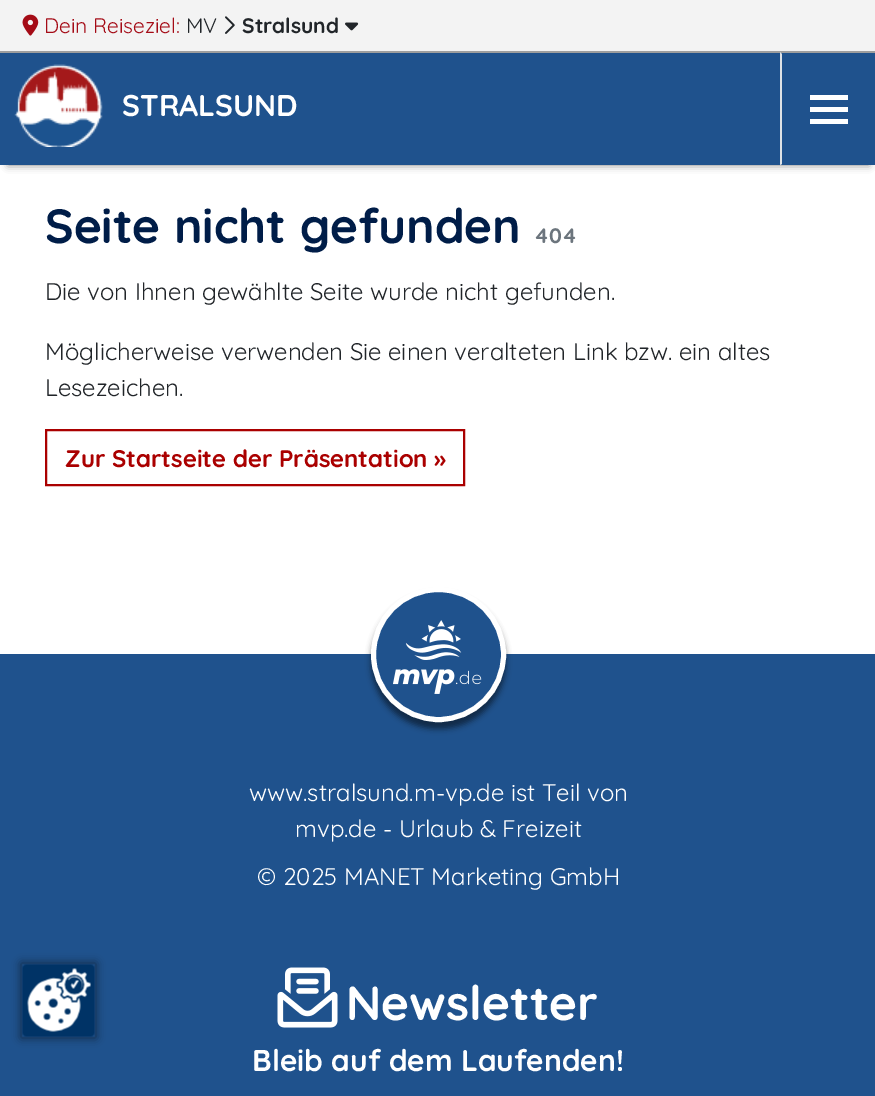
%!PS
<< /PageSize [875 1096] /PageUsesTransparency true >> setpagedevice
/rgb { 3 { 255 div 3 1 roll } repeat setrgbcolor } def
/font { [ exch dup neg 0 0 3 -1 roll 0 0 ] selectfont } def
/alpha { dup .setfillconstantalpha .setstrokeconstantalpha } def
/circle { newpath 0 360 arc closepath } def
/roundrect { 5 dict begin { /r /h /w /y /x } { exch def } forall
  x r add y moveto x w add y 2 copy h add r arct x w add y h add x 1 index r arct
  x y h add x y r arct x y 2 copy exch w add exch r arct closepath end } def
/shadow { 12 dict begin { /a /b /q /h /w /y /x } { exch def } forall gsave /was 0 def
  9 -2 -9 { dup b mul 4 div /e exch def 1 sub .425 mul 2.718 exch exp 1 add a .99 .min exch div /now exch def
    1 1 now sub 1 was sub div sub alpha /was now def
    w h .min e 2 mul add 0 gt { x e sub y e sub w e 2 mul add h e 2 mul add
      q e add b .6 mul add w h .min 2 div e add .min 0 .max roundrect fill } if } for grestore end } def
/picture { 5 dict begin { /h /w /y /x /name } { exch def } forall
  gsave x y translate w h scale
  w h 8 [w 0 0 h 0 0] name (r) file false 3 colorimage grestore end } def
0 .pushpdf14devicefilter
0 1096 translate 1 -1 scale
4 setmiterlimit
255 255 255 rgb
0 0 875 1096 rectfill
243 243 243 rgb
0 0 875 51 rectfill
158 158 158 rgb
0 51 875 2 rectfill
(img/1.rgb) 22 14 17 22 picture
(img/2.rgb) 225 16 10 18 picture
(img/3.rgb) 345 22 14 9 picture
0 0 0 rgb
8 68 861 97 0 4 0.5 shadow
31 82 141 rgb
0 53 875 112 rectfill
(img/4.rgb) 14 64 89 83 picture
222 226 230 rgb
780 165 moveto 780 52 lineto 782 54 lineto 782 164 lineto closepath fill
[
  [810 107 38 5 255 255 255]
  [810 95 38 5 255 255 255]
  [810 119 38 5 255 255 255]
] { aload pop rgb rectfill } forall
170 0 0 rgb
2 setlinewidth
46 430 418 55 rectstroke
31 82 141 rgb
0 654 875 442 rectfill
0 0 0 rgb
371 594 135 135 67.5 3 0.5 shadow
31 82 141 rgb
438.5 654.5 65 circle gsave fill grestore
255 255 255 rgb
5 setlinewidth
stroke
(img/5.rgb) 393 620 89 74 picture
(img/6.rgb) 277 967 61 61 picture
0 0 0 rgb
21 963 75 75 0 4.5 0.5 shadow
(img/7.rgb) 22 964 73 73 picture
/Quicksand-Light 21 font
164 11 22 rgb
44 33 moveto (Dein Reiseziel:) show
33 37 41 rgb
186 33 moveto (MV) show
/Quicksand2-Light 21 font
242 33 moveto (Stralsund) show
/Quicksand2-Light 30 font
255 255 255 rgb
122 116 moveto (STRALSUND) show
/Quicksand2-Light 48 font
0 29 72 rgb
45 243 moveto (Seite nicht gefunden) show
/Quicksand2-Light 21 font
108 117 125 rgb
534 243 moveto (404) show
/Quicksand-Light 24 font
33 37 41 rgb
[
  [(Die von Ihnen gewählte Seite wurde nicht gefunden.) 45 300]
  [(Möglicherweise verwenden Sie einen veralteten Link bzw. ein altes) 45 360]
  [(Lesezeichen.) 45 396]
] { aload pop moveto show } forall
/Quicksand2-Light 24 font
170 0 0 rgb
65 467 moveto (Zur Startseite der Präsentation ») show
/Quicksand-Light 24 font
255 255 255 rgb
[
  [(www.stralsund.m-vp.de ist Teil von) 249 801]
  [(mvp.de - Urlaub & Freizeit) 295 837]
  [(© 2025 MANET Marketing GmbH) 257 885]
] { aload pop moveto show } forall
/Quicksand2-Light 48 font
346 1020 moveto (Newsletter) show
/Quicksand2-Light 30 font
252 1071 moveto (Bleib auf dem Laufenden!) show
.poppdf14devicefilter showpage
